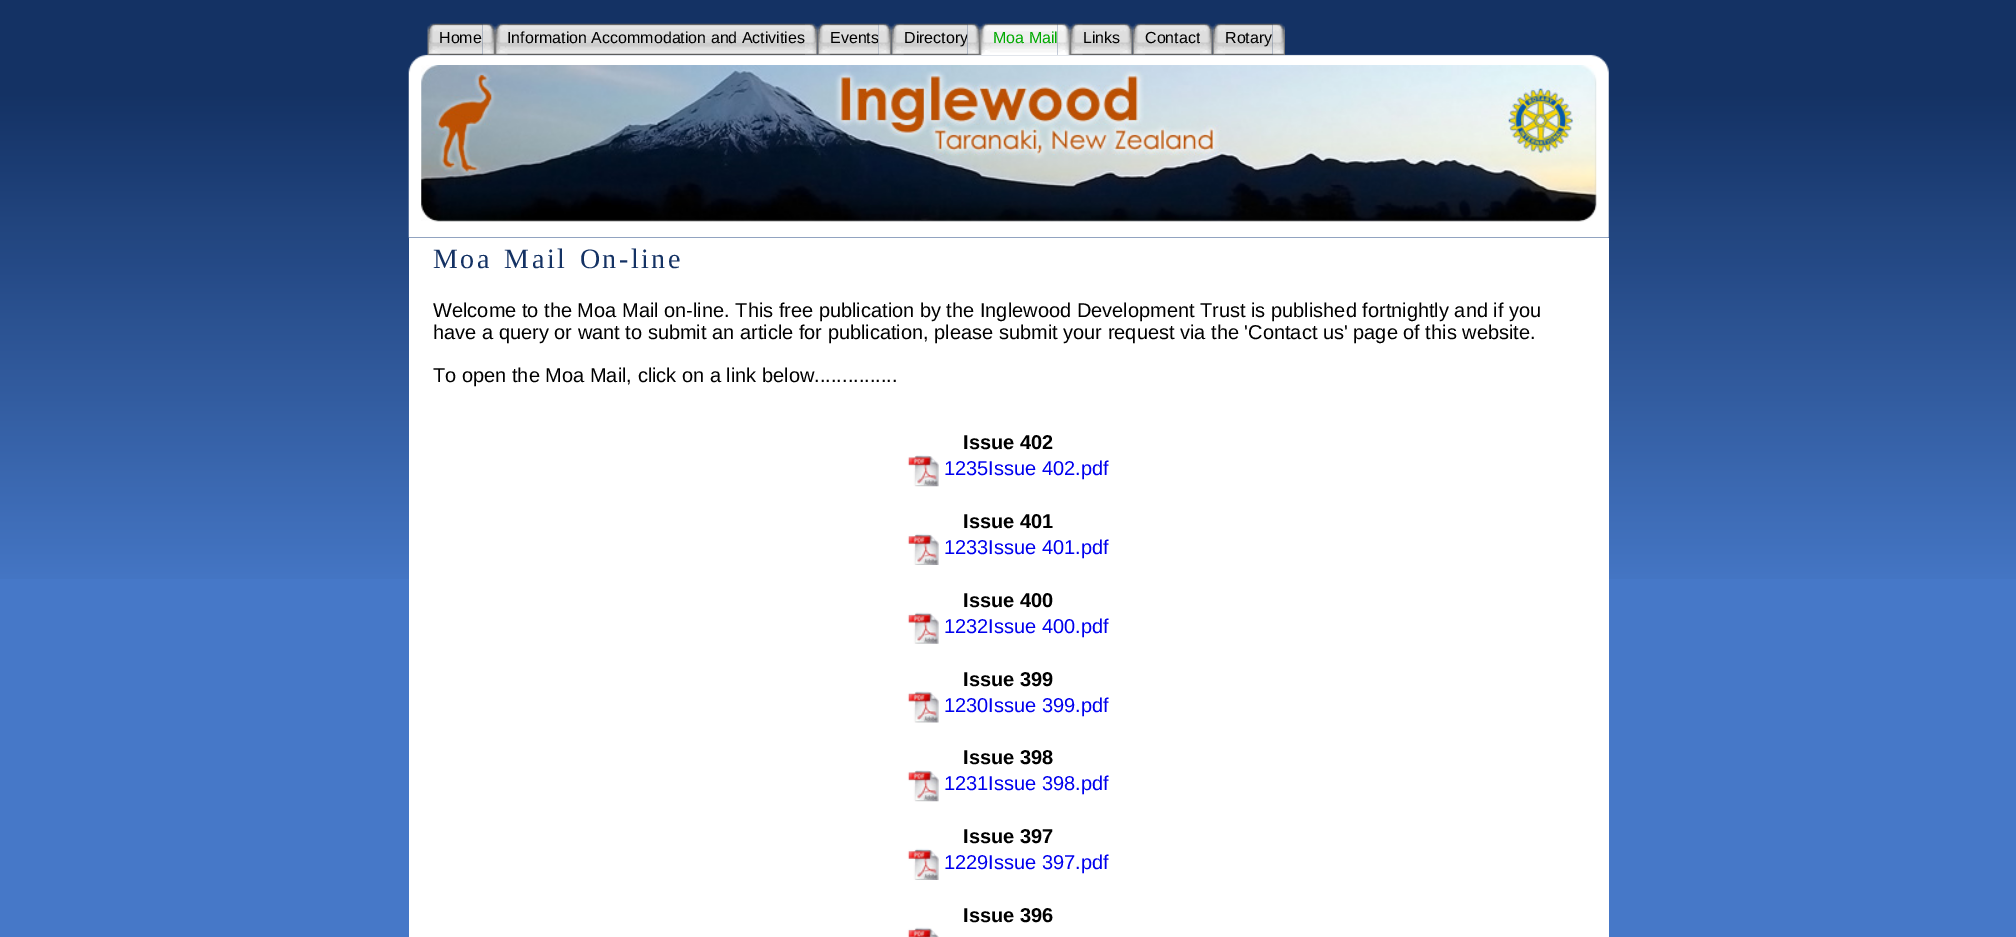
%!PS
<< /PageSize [2016 937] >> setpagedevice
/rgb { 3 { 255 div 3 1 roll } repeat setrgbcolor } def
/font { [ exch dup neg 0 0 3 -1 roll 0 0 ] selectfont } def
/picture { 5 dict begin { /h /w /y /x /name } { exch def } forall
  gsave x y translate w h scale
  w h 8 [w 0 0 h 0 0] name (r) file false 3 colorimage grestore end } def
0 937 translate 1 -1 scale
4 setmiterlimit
70 120 200 rgb
0 0 2016 937 rectfill
(img/1.rgb) 0 0 2016 579 picture
(img/17.rgb) 408 54 1201 184 picture
(img/2.rgb) 427 23 56 32 picture
(img/3.rgb) 482 23 13 32 picture
(img/4.rgb) 495 23 310 32 picture
(img/5.rgb) 805 23 13 32 picture
(img/6.rgb) 817 23 62 32 picture
(img/10.rgb) 980 23 78 32 picture
(img/11.rgb) 1057 23 13 32 picture
(img/12.rgb) 1070 23 50 32 picture
(img/5.rgb) 1120 23 13 32 picture
(img/13.rgb) 1132 23 68 32 picture
(img/18.rgb) 421 65 1176 157 picture
255 255 255 rgb
409 238 1200 699 rectfill
(img/19.rgb) 907 455 32 32 picture
(img/20.rgb) 907 533 32 32 picture
(img/21.rgb) 907 612 32 32 picture
(img/22.rgb) 907 691 32 32 picture
(img/19.rgb) 907 770 32 32 picture
(img/20.rgb) 907 848 32 32 picture
(img/23.rgb) 907 927 32 10 picture
/LiberationSans-Regular 16 font
0 0 0 rgb
[
  [(Home) 439 43]
  [(Information Accommodation and Activities) 507 43]
  [(Events) 830 43]
] { aload pop moveto show } forall
(img/7.rgb) 878 23 14 32 picture
(img/8.rgb) 891 23 77 32 picture
904 43 moveto (Directory) show
(img/9.rgb) 967 23 13 32 picture
0 170 0 rgb
993 43 moveto (Moa Mail) show
0 0 0 rgb
1083 43 moveto (Links) show
1145 43 moveto (Contact) show
(img/14.rgb) 1200 23 13 32 picture
(img/15.rgb) 1212 23 61 32 picture
1225 43 moveto (Rotary) show
(img/16.rgb) 1272 23 13 32 picture
/LiberationSerif-Regular 28 font
20 50 100 rgb
433 268 moveto 3 0 32 2.5 0 (Moa Mail On-line) awidthshow
/LiberationSans-Regular 20 font
0 0 0 rgb
[
  [(Welcome to the Moa Mail on-line. This free publication by the Inglewood Development Trust is published fortnightly and if you) 433 317]
  [(have a query or want to submit an article for publication, please submit your request via the 'Contact us' page of this website.) 433 339]
  [(To open the Moa Mail, click on a link below...............) 433 382]
] { aload pop moveto show } forall
/LiberationSans-Bold 20 font
963 449 moveto (Issue 402) show
/LiberationSans-Regular 20 font
0 0 238 rgb
944 475 moveto (1235Issue 402.pdf) show
/LiberationSans-Bold 20 font
0 0 0 rgb
963 528 moveto (Issue 401) show
/LiberationSans-Regular 20 font
0 0 238 rgb
944 554 moveto (1233Issue 401.pdf) show
/LiberationSans-Bold 20 font
0 0 0 rgb
963 607 moveto (Issue 400) show
/LiberationSans-Regular 20 font
0 0 238 rgb
944 633 moveto (1232Issue 400.pdf) show
/LiberationSans-Bold 20 font
0 0 0 rgb
963 686 moveto (Issue 399) show
/LiberationSans-Regular 20 font
0 0 238 rgb
944 712 moveto (1230Issue 399.pdf) show
/LiberationSans-Bold 20 font
0 0 0 rgb
963 764 moveto (Issue 398) show
/LiberationSans-Regular 20 font
0 0 238 rgb
944 790 moveto (1231Issue 398.pdf) show
/LiberationSans-Bold 20 font
0 0 0 rgb
963 843 moveto (Issue 397) show
/LiberationSans-Regular 20 font
0 0 238 rgb
944 869 moveto (1229Issue 397.pdf) show
/LiberationSans-Bold 20 font
0 0 0 rgb
963 922 moveto (Issue 396) show
showpage
